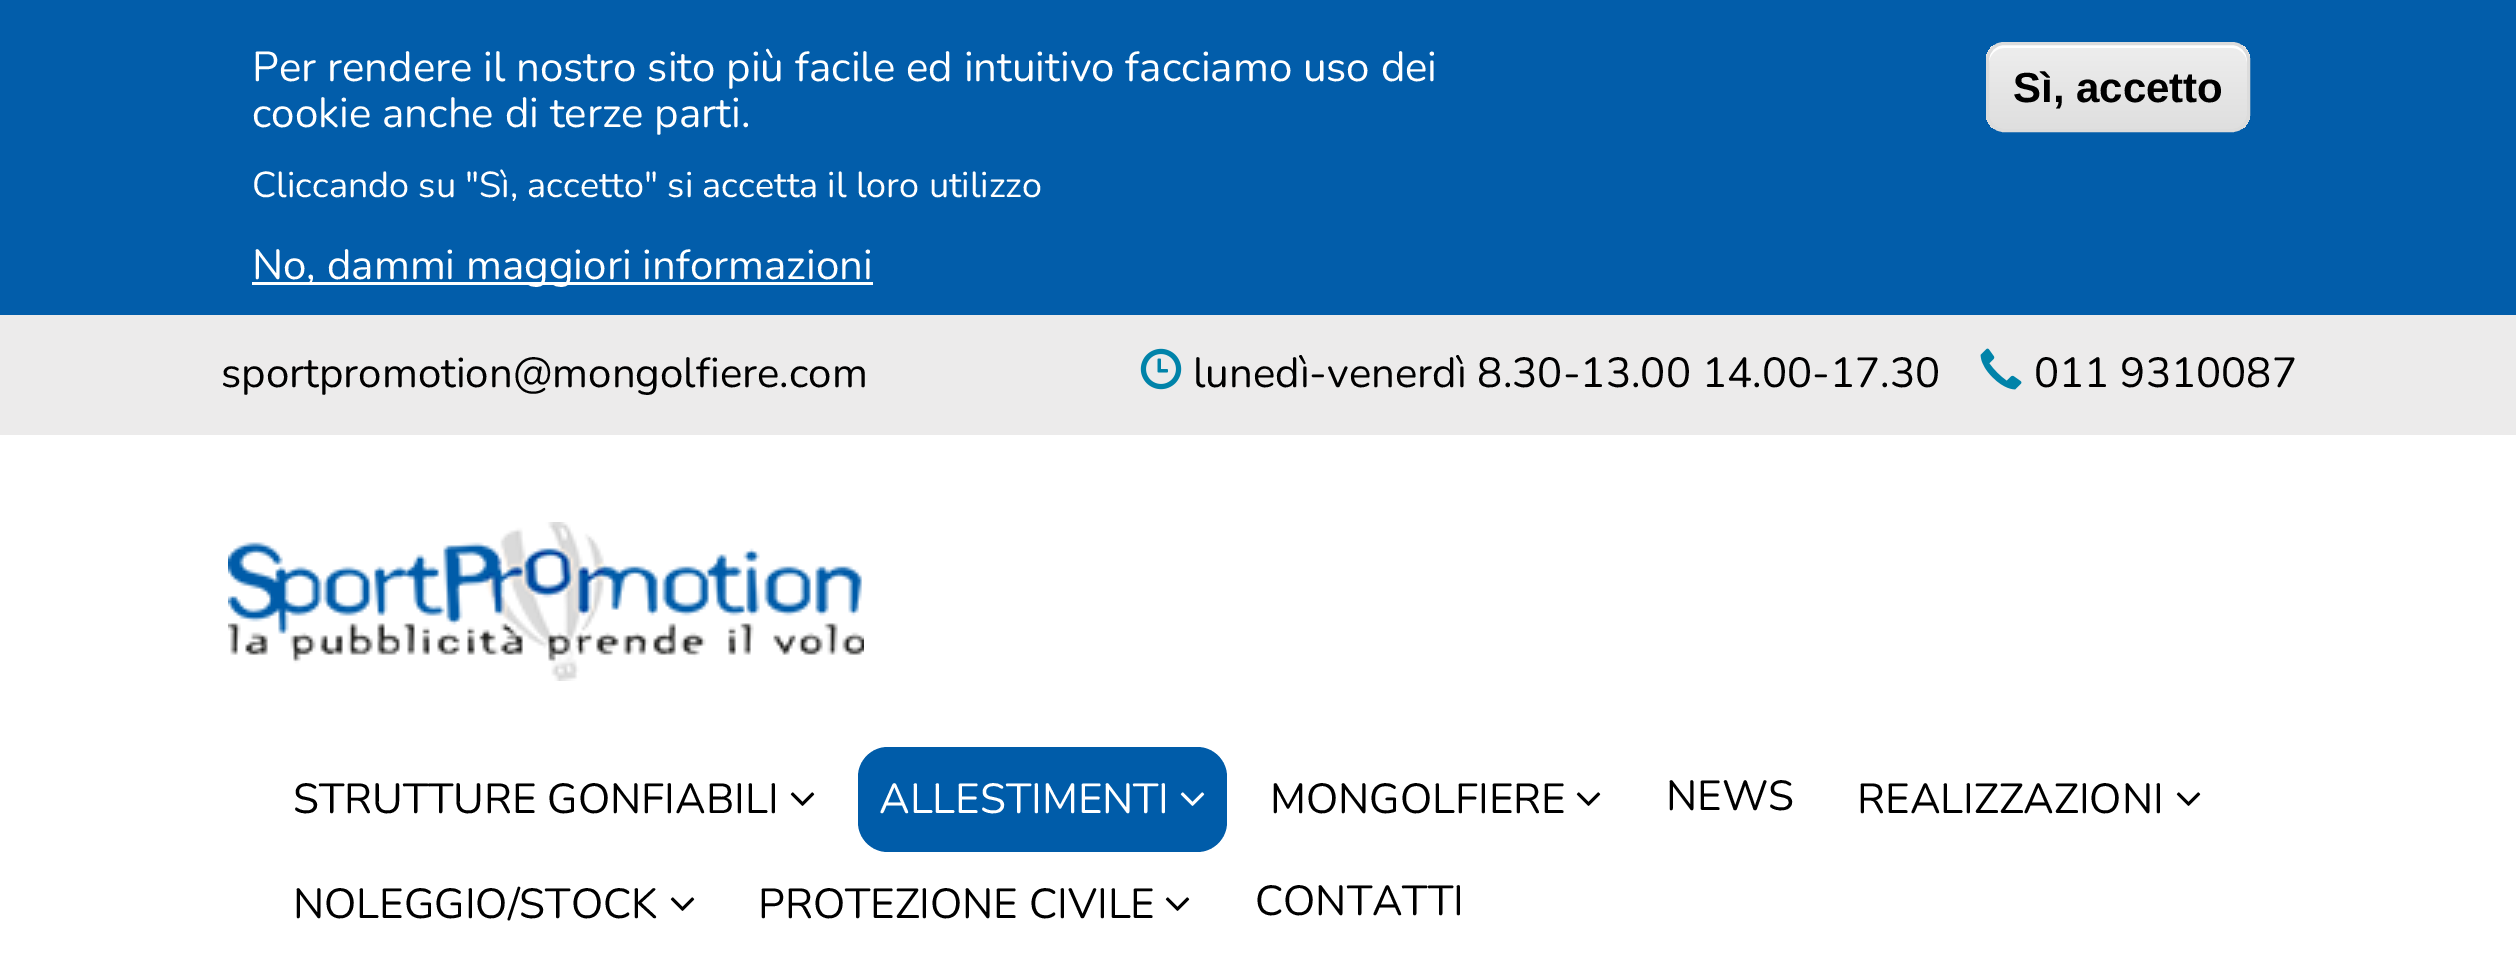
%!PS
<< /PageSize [2516 963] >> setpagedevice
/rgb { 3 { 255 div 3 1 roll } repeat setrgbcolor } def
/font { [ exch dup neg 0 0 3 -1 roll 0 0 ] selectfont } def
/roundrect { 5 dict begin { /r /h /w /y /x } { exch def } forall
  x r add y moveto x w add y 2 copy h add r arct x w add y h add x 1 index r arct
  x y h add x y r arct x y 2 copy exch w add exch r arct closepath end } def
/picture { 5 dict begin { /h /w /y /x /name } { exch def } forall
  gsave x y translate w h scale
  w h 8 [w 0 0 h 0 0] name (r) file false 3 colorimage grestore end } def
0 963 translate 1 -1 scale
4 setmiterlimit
255 255 255 rgb
0 0 2516 963 rectfill
2 93 170 rgb
0 0 2516 315 rectfill
255 255 255 rgb
252 282 621 3 rectfill
gsave
1986 42 264 90 18 roundrect clip newpath
gsave 1986 45 moveto 2250 45 lineto 2250 129 lineto 1986 129 lineto closepath clip newpath
<< /ShadingType 2 /ColorSpace /DeviceRGB /Coords [2118 45 2118 129] /Extend [true true] /Function << /FunctionType 3 /Domain [0 1] /Functions [<< /FunctionType 2 /Domain [0 1] /C0 [0.929 0.929 0.929] /C1 [0.929 0.929 0.929] /N 1 >> << /FunctionType 2 /Domain [0 1] /C0 [0.929 0.929 0.929] /C1 [0.875 0.875 0.875] /N 1 >>] /Bounds [0.05] /Encode [0 1 0 1] >> >> shfill grestore
grestore
2004 48 moveto 2232 48 lineto 2240 48 2247 55 2247 63 curveto 2247 60 lineto 2247 52 2240 45 2232 45 curveto 2004 45 lineto 1996 45 1989 52 1989 60 curveto 1989 63 lineto 1989 55 1996 48 2004 48 curveto closepath fill
220 220 220 rgb
3 setlinewidth
1987.5 43.5 261 87 16.5 roundrect stroke
236 235 235 rgb
0 315 2516 120 rectfill
(img/1.rgb) 1140 348 42 42 picture
(img/2.rgb) 1980 348 42 42 picture
(img/3.rgb) 228 522 636 159 picture
(img/4.rgb) 790 792 25 14 picture
0 92 169 rgb
858 747 369 105 30 roundrect fill
(img/5.rgb) 1180 792 25 14 picture
(img/4.rgb) 1576 792 25 14 picture
(img/4.rgb) 2176 792 25 14 picture
(img/4.rgb) 670 897 25 14 picture
(img/4.rgb) 1165 897 25 14 picture
/Nunito-Regular 42 font
255 255 255 rgb
252 81 moveto (Per rendere il nostro sito più facile ed intuitivo facciamo uso dei) show
252 127 moveto (cookie anche di terze parti.) show
/Nunito-Regular 36 font
252 197 moveto (Cliccando su "Sì, accetto" si accetta il loro utilizzo) show
/Nunito-Regular 42 font
252 279 moveto (No, dammi maggiori informazioni) show
/LiberationSans-Bold 42 font
0 0 0 rgb
2013 102 moveto (Sì, accetto) show
/Nunito-Regular 42 font
[
  [(sportpromotion@mongolfiere.com) 221 387]
  [(lunedì-venerdì 8.30-13.00 14.00-17.30) 1193 387]
  [(011 9310087) 2034 387]
  [(STRUTTURE GONFIABILI) 293 813]
] { aload pop moveto show } forall
255 255 255 rgb
879 813 moveto (ALLESTIMENTI) show
0 0 0 rgb
[
  [(MONGOLFIERE) 1270 813]
  [(NEWS) 1666 810]
  [(REALIZZAZIONI) 1857 813]
  [(NOLEGGIO/STOCK) 293 918]
  [(PROTEZIONE CIVILE) 758 918]
  [(CONTATTI) 1255 915]
] { aload pop moveto show } forall
showpage
